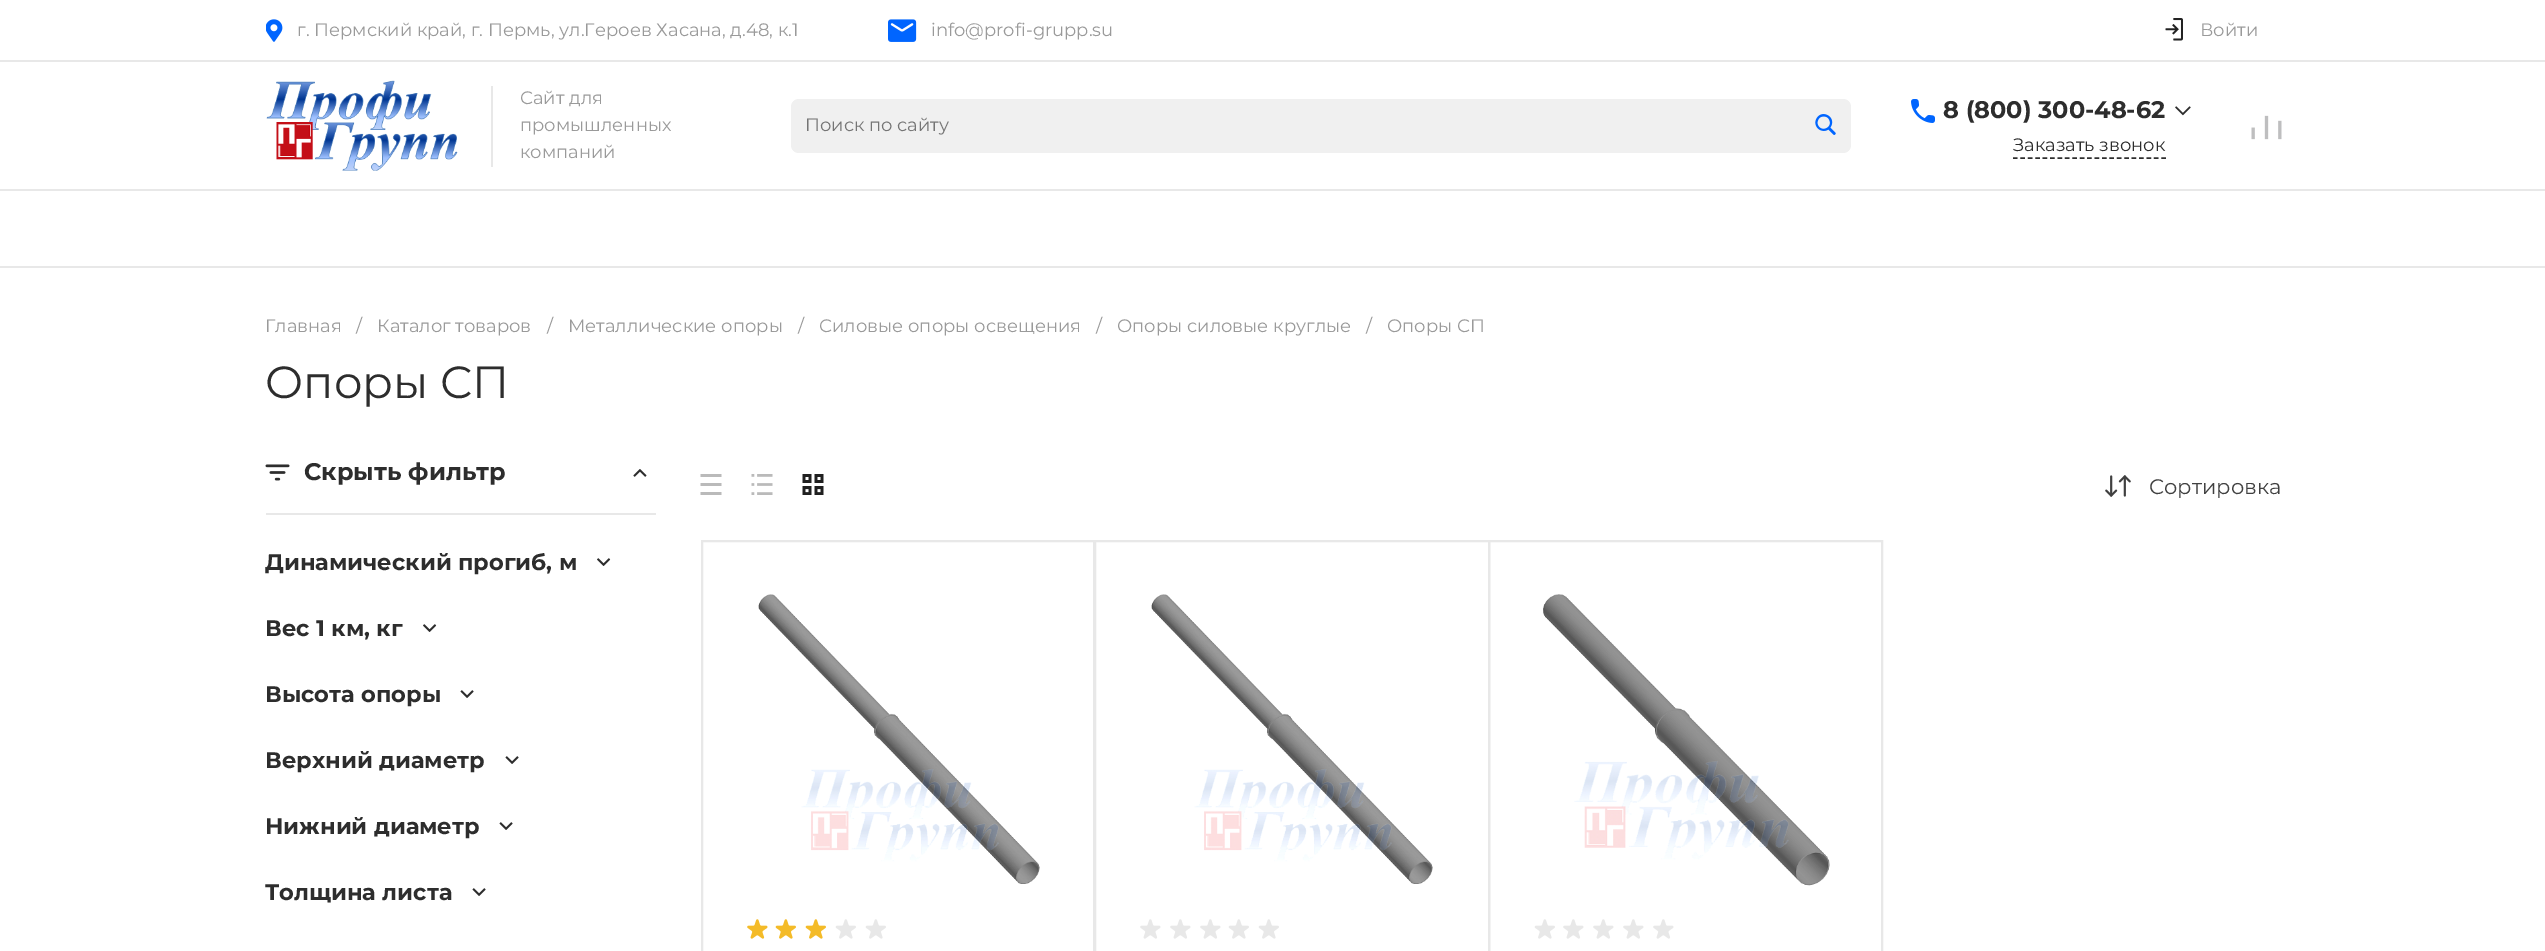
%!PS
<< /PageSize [2545 951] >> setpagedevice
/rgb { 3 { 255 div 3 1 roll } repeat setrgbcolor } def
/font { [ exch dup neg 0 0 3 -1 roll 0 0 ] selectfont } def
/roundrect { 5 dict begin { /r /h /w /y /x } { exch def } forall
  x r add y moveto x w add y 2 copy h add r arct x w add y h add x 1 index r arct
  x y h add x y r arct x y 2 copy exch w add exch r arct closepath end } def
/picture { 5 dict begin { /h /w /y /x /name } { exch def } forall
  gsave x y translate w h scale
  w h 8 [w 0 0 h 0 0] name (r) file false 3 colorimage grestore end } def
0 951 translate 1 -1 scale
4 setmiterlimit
255 255 255 rgb
0 0 2545 951 rectfill
232 232 232 rgb
0 60 2545 2 rectfill
(img/1.rgb) 266 19 17 23 picture
(img/2.rgb) 888 19 29 23 picture
(img/3.rgb) 2165 18 18 23 picture
(img/4.rgb) 266 80 192 91 picture
491 86 2 81 rectfill
240 240 240 rgb
791 99 1060 54 8 roundrect fill
(img/5.rgb) 1815 114 21 21 picture
(img/6.rgb) 1911 99 24 24 picture
(img/7.rgb) 2175 106 16 10 picture
45 45 45 rgb
1.5 setlinewidth
[4.5 2.92] 0 setdash
2013 158 moveto 2166 158 lineto stroke
(img/8.rgb) 2251 115 31 25 picture
232 232 232 rgb
0 189 2545 2 rectfill
0 266 2545 2 rectfill
(img/9.rgb) 265 464 25 17 picture
(img/10.rgb) 633 469 14 8 picture
266 513 390 2 rectfill
(img/11.rgb) 597 558 14 8 picture
(img/11.rgb) 423 624 14 8 picture
(img/12.rgb) 460 690 14 8 picture
(img/12.rgb) 505 756 14 8 picture
(img/12.rgb) 499 822 14 8 picture
(img/12.rgb) 472 888 14 8 picture
(img/13.rgb) 700 474 22 21 picture
(img/14.rgb) 751 474 22 21 picture
(img/15.rgb) 802 474 22 21 picture
(img/16.rgb) 2105 475 26 22 picture
2 setlinewidth
[] 0 setdash
702 541 392 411 rectstroke
(img/17.rgb) 758 594 282 290 picture
(img/18.rgb) 747 919 21 20 picture
(img/19.rgb) 775 919 21 20 picture
(img/19.rgb) 805 919 21 20 picture
(img/20.rgb) 835 919 21 20 picture
(img/20.rgb) 865 919 21 20 picture
1095 541 394 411 rectstroke
(img/17.rgb) 1151 594 282 290 picture
(img/21.rgb) 1140 919 21 20 picture
(img/21.rgb) 1170 919 21 20 picture
(img/21.rgb) 1200 919 21 20 picture
(img/20.rgb) 1228 919 21 20 picture
(img/20.rgb) 1258 919 21 20 picture
1489 541 393 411 rectstroke
(img/22.rgb) 1543 594 287 292 picture
(img/20.rgb) 1534 919 21 20 picture
(img/21.rgb) 1563 919 21 20 picture
(img/21.rgb) 1593 919 21 20 picture
(img/21.rgb) 1623 919 21 20 picture
(img/21.rgb) 1653 919 21 20 picture
/Montserrat-Regular 18 font
154 154 154 rgb
[
  [(г. Пермский край, г. Пермь, ул.Героев Хасана, д.48, к.1) 297 36]
  [(info@profi-grupp.su) 931 36]
  [(Войти) 2200 36]
] { aload pop moveto show } forall
gsave
521 86 210 81 rectclip
520 104 moveto (Сайт для) show
grestore
520 131 moveto (промышленных) show
520 158 moveto (компаний) show
117 117 117 rgb
805 131 moveto (Поиск по сайту) show
/Montserrat-Bold 24 font
45 45 45 rgb
1943 118 moveto (8 \(800\) 300-48-62) show
/Montserrat-Regular 18 font
2013 151 moveto (Заказать звонок) show
154 154 154 rgb
[
  [(Главная) 265 332]
  [(/) 356 332]
  [(Каталог товаров) 377 332]
  [(/) 547 332]
  [(Металлические опоры) 568 332]
  [(/) 798 332]
  [(Силовые опоры освещения) 819 332]
  [(/) 1096 332]
  [(Опоры силовые круглые) 1117 332]
  [(/) 1366 332]
  [(Опоры СП) 1387 332]
] { aload pop moveto show } forall
/Montserrat-Regular 45 font
45 45 45 rgb
265 398 moveto (Опоры СП) show
/Montserrat-Bold 24 font
304 480 moveto (Скрыть фильтр) show
/Montserrat-Bold 22.5 font
[
  [(Динамический прогиб, м) 265 570]
  [(Вес 1 км, кг) 265 636]
  [(Высота опоры) 265 702]
  [(Верхний диаметр) 265 768]
  [(Нижний диаметр) 265 834]
  [(Толщина листа) 265 900]
] { aload pop moveto show } forall
/Montserrat-Regular 21 font
64 64 64 rgb
2149 494 moveto (Сортировка) show
showpage
